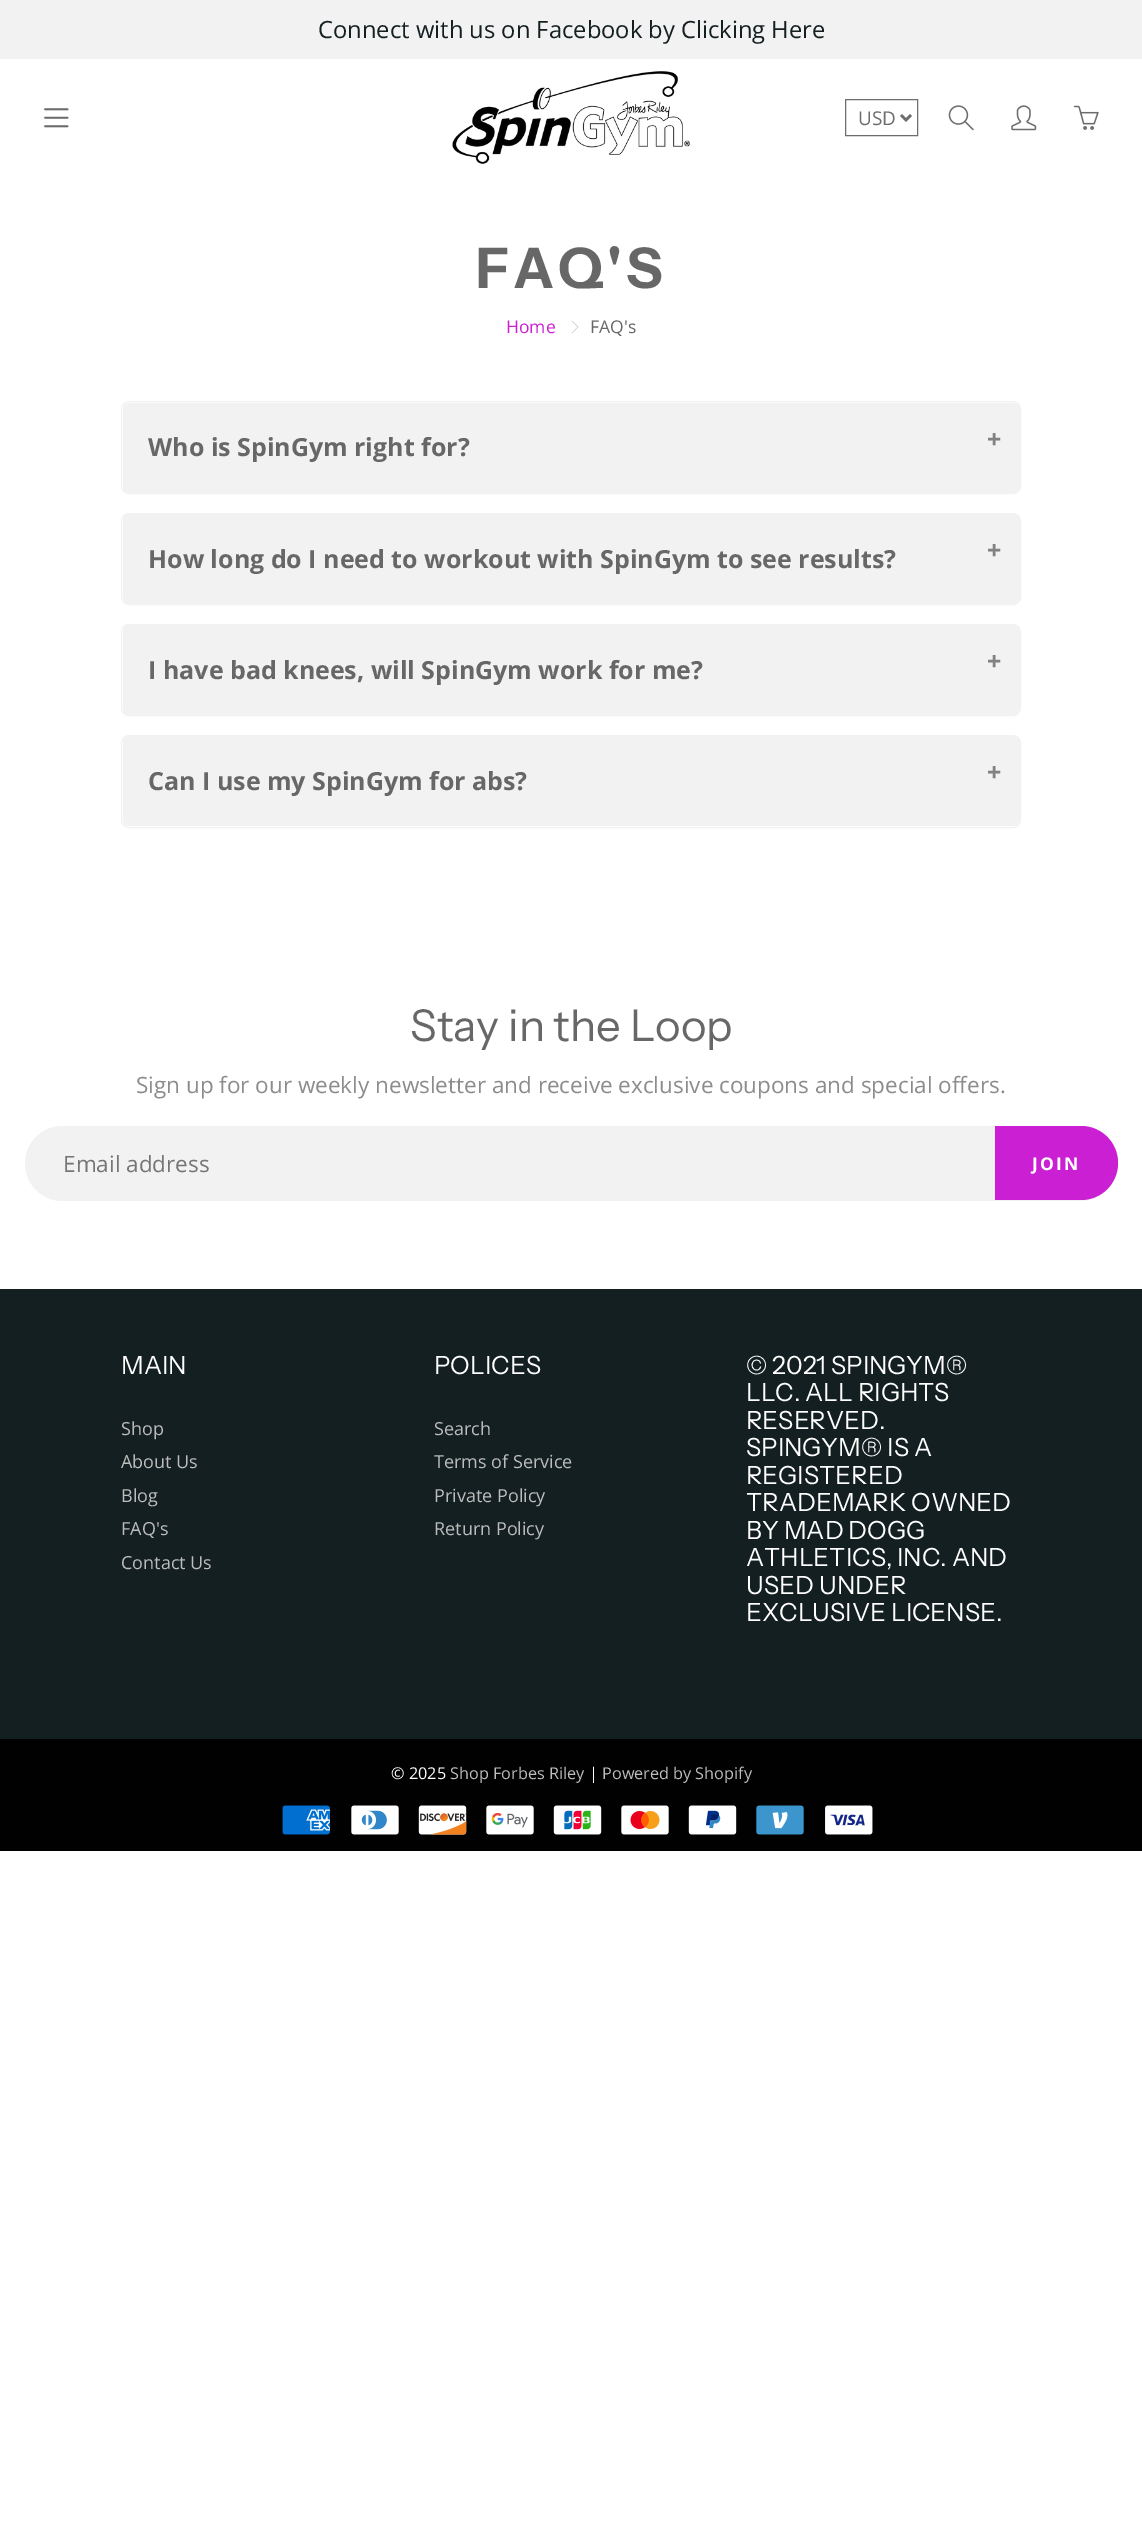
%!PS
<< /PageSize [1142 2522] >> setpagedevice
/rgb { 3 { 255 div 3 1 roll } repeat setrgbcolor } def
/font { [ exch dup neg 0 0 3 -1 roll 0 0 ] selectfont } def
/roundrect { 5 dict begin { /r /h /w /y /x } { exch def } forall
  x r add y moveto x w add y 2 copy h add r arct x w add y h add x 1 index r arct
  x y h add x y r arct x y 2 copy exch w add exch r arct closepath end } def
/picture { 5 dict begin { /h /w /y /x /name } { exch def } forall
  gsave x y translate w h scale
  w h 8 [w 0 0 h 0 0] name (r) file false 3 colorimage grestore end } def
0 2522 translate 1 -1 scale
4 setmiterlimit
255 255 255 rgb
0 0 1142 2522 rectfill
242 242 242 rgb
0 0 1142 59 rectfill
(img/1.rgb) 452 71 238 93 picture
(img/2.rgb) 44 108 25 20 picture
109 109 109 rgb
845.5 99.5 72 36 rectstroke
2.5 setlinewidth
901 115 moveto 906 120 lineto 911 115 lineto stroke
(img/3.rgb) 948 105 26 26 picture
(img/4.rgb) 1011 105 26 26 picture
(img/5.rgb) 1073 105 26 25 picture
(img/6.rgb) 571 320 8 14 picture
242 242 242 rgb
1 setlinewidth
121.5 401.5 899 92 7.5 roundrect stroke
123 403 897 90 6 roundrect fill
121.5 513.5 899 91 7.5 roundrect stroke
123 514 897 90 6 roundrect fill
121.5 624.5 899 91 7.5 roundrect stroke
123 625 897 90 6 roundrect fill
121.5 735.5 899 92 7.5 roundrect stroke
123 736 897 90 6 roundrect fill
25 1126 1093 75 37.5 roundrect fill
203 31 212 rgb
995 1126 moveto 1081 1126 lineto 1101.5 1126 1118 1142.5 1118 1163 curveto 1118 1183.5 1101.5 1200 1081 1200 curveto 995 1200 lineto closepath fill
20 31 33 rgb
0 1289 1142 450 rectfill
1 1 1 rgb
0 1739 1142 112 rectfill
(img/7.rgb) 282 1805 48 30 picture
(img/8.rgb) 351 1805 48 30 picture
(img/9.rgb) 418 1805 49 30 picture
(img/10.rgb) 486 1805 48 30 picture
(img/11.rgb) 553 1805 49 30 picture
(img/12.rgb) 621 1805 48 30 picture
(img/13.rgb) 688 1805 49 30 picture
(img/14.rgb) 756 1805 48 30 picture
(img/15.rgb) 825 1805 48 30 picture
/OpenSans-Regular 23.75 font
20 31 33 rgb
318 38 moveto (Connect with us on Facebook by Clicking Here) show
/OpenSans-Regular 19 font
109 109 109 rgb
858 125 moveto (USD) show
/InstrumentSans-Bold 56 font
103 103 103 rgb
476 288 moveto 3.75 0 (FAQ'S) ashow
/OpenSans-Regular 17.5 font
203 31 212 rgb
506 333 moveto (Home) show
103 103 103 rgb
590 333 moveto (FAQ's) show
/OpenSans-Bold 25 font
148 456 moveto (Who is SpinGym right for?) show
130 129 129 rgb
987 448 moveto (+) show
103 103 103 rgb
148 568 moveto (How long do I need to workout with SpinGym to see results?) show
130 129 129 rgb
987 559 moveto (+) show
103 103 103 rgb
148 679 moveto (I have bad knees, will SpinGym work for me?) show
130 129 129 rgb
987 670 moveto (+) show
103 103 103 rgb
148 790 moveto (Can I use my SpinGym for abs?) show
130 129 129 rgb
987 781 moveto (+) show
/InstrumentSans-Regular 43.75 font
103 103 103 rgb
410 1041 moveto (Stay in the Loop) show
/OpenSans-Regular 22.5 font
140 140 140 rgb
136 1093 moveto (Sign up for our weekly newsletter and receive exclusive coupons and special offers.) show
117 117 117 rgb
63 1172 moveto (Email address) show
/OpenSans-Bold 17.5 font
255 255 255 rgb
1032 1170 moveto 2 0 (JOIN) ashow
/InstrumentSans-Regular 25 font
121 1374 moveto (MAIN) show
/OpenSans-Regular 18 font
189 189 189 rgb
[
  [(Shop) 121 1435]
  [(About Us) 121 1468]
  [(Blog) 121 1502]
  [(FAQ's) 121 1535]
  [(Contact Us) 121 1569]
] { aload pop moveto show } forall
/InstrumentSans-Regular 25 font
255 255 255 rgb
434 1374 moveto (POLICES) show
/OpenSans-Regular 18 font
189 189 189 rgb
[
  [(Search) 434 1435]
  [(Terms of Service) 434 1468]
  [(Private Policy) 434 1502]
  [(Return Policy) 434 1535]
] { aload pop moveto show } forall
/InstrumentSans-Regular 25 font
255 255 255 rgb
[
  [(© 2021 SPINGYM®) 746 1374]
  [(LLC. ALL RIGHTS) 746 1401]
  [(RESERVED.) 746 1429]
  [(SPINGYM® IS A) 746 1456]
  [(REGISTERED) 746 1484]
  [(TRADEMARK OWNED) 746 1511]
  [(BY MAD DOGG) 746 1539]
  [(ATHLETICS, INC. AND) 746 1566]
  [(USED UNDER) 746 1594]
  [(EXCLUSIVE LICENSE.) 746 1621]
] { aload pop moveto show } forall
/OpenSans-Regular 16.25 font
391 1779 moveto (© 2025) show
189 189 189 rgb
450 1779 moveto (Shop Forbes Riley) show
255 255 255 rgb
589 1779 moveto (|) show
189 189 189 rgb
602 1779 moveto (Powered by Shopify) show
showpage
